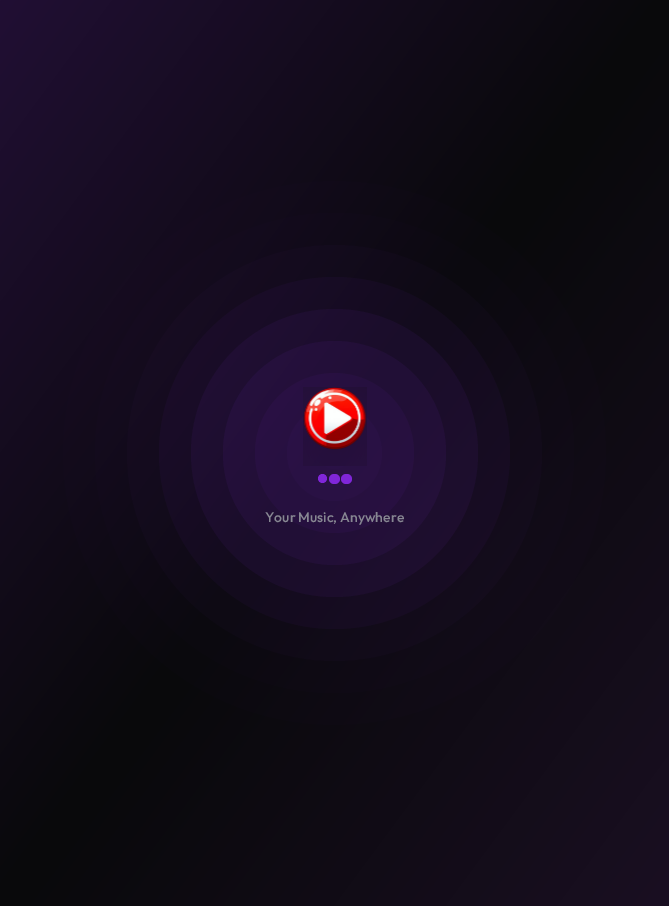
%!PS
<< /PageSize [669 906] /PageUsesTransparency true >> setpagedevice
/rgb { 3 { 255 div 3 1 roll } repeat setrgbcolor } def
/font { [ exch dup neg 0 0 3 -1 roll 0 0 ] selectfont } def
/alpha { dup .setfillconstantalpha .setstrokeconstantalpha } def
/circle { newpath 0 360 arc closepath } def
/roundrect { 5 dict begin { /r /h /w /y /x } { exch def } forall
  x r add y moveto x w add y 2 copy h add r arct x w add y h add x 1 index r arct
  x y h add x y r arct x y 2 copy exch w add exch r arct closepath end } def
/shadow { 12 dict begin { /a /b /q /h /w /y /x } { exch def } forall gsave /was 0 def
  9 -2 -9 { dup b mul 4 div /e exch def 1 sub .425 mul 2.718 exch exp 1 add a .99 .min exch div /now exch def
    1 1 now sub 1 was sub div sub alpha /was now def
    w h .min e 2 mul add 0 gt { x e sub y e sub w e 2 mul add h e 2 mul add
      q e add b .6 mul add w h .min 2 div e add .min 0 .max roundrect fill } if } for grestore end } def
/picture { 5 dict begin { /h /w /y /x /name } { exch def } forall
  gsave x y translate w h scale
  w h 8 [w 0 0 h 0 0] name (r) file false 3 colorimage grestore end } def
0 .pushpdf14devicefilter
0 906 translate 1 -1 scale
4 setmiterlimit
255 255 255 rgb
0 0 669 906 rectfill
gsave 0 0 moveto 669 0 lineto 669 906 lineto 0 906 lineto closepath clip newpath
<< /ShadingType 2 /ColorSpace /DeviceRGB /Coords [-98 133 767 773] /Extend [true true] /Function << /FunctionType 3 /Domain [0 1] /Functions [<< /FunctionType 2 /Domain [0 1] /C0 [0.129 0.059 0.204] /C1 [0.035 0.035 0.043] /N 1 >> << /FunctionType 2 /Domain [0 1] /C0 [0.035 0.035 0.043] /C1 [0.102 0.059 0.133] /N 1 >>] /Bounds [0.5] /Encode [0 1 0 1] >> >> shfill grestore
128 38 217 rgb
207 325 255 256 127.5 64 0.3 shadow
(img/1.rgb) 303 387 64 79 picture
322.5 478.5 4.5 circle fill
329 474 11 10 5 roundrect fill
341 474 11 10 5 roundrect fill
/Outfit-Thin 14 font
135 135 146 rgb
265 522 moveto (Your Music, Anywhere) show
.poppdf14devicefilter showpage
